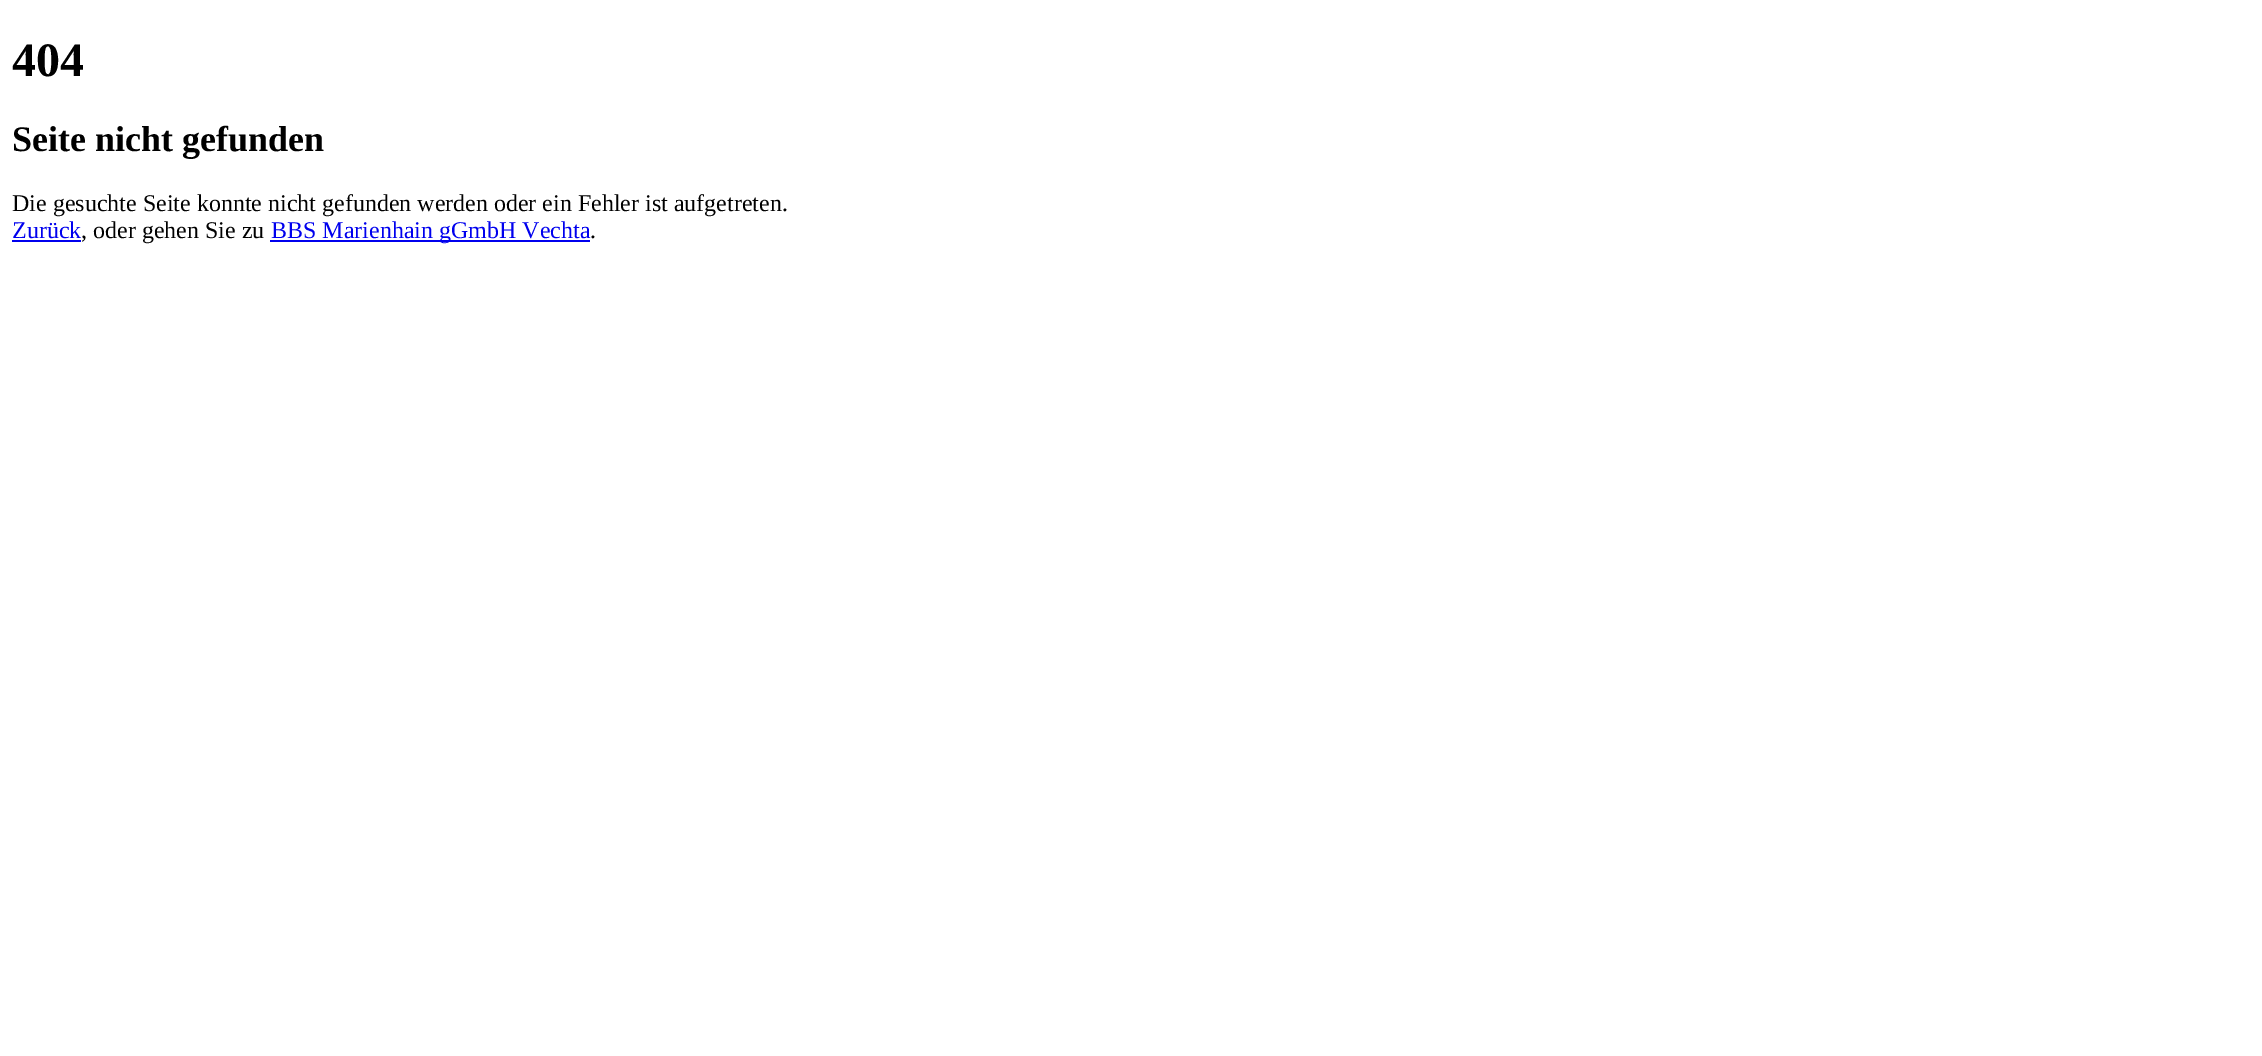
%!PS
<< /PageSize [2262 1056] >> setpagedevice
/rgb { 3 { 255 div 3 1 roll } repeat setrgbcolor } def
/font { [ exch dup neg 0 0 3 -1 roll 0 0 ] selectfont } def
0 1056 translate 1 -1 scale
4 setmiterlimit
255 255 255 rgb
0 0 2262 1056 rectfill
0 0 238 rgb
12 240 69 2 rectfill
270 240 320 2 rectfill
/LiberationSerif-Bold 48 font
0 0 0 rgb
12 76 moveto (404) show
/LiberationSerif-Bold 36 font
12 151 moveto (Seite nicht gefunden) show
/LiberationSerif-Regular 24 font
12 211 moveto (Die gesuchte Seite konnte nicht gefunden werden oder ein Fehler ist aufgetreten.) show
0 0 238 rgb
12 238 moveto (Zurück) show
0 0 0 rgb
81 238 moveto (, oder gehen Sie zu) show
0 0 238 rgb
271 238 moveto (BBS Marienhain gGmbH Vechta) show
0 0 0 rgb
590 238 moveto (.) show
showpage
